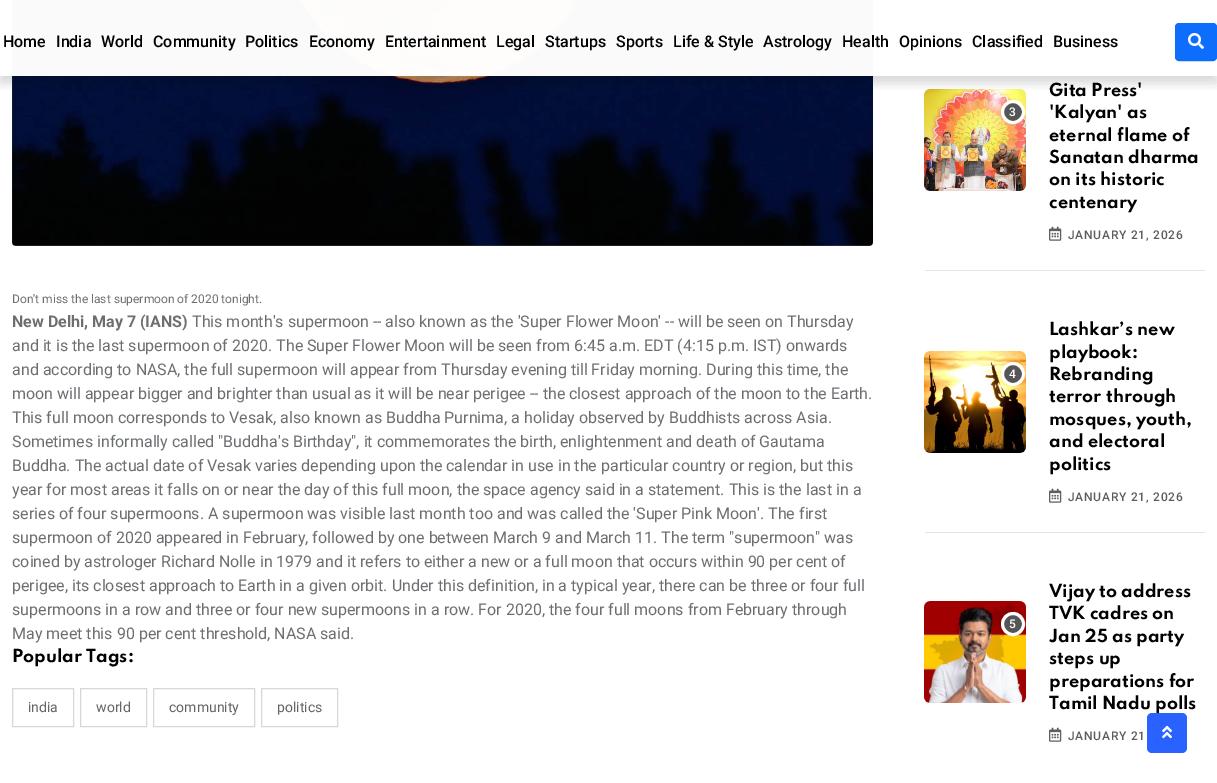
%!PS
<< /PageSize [1217 783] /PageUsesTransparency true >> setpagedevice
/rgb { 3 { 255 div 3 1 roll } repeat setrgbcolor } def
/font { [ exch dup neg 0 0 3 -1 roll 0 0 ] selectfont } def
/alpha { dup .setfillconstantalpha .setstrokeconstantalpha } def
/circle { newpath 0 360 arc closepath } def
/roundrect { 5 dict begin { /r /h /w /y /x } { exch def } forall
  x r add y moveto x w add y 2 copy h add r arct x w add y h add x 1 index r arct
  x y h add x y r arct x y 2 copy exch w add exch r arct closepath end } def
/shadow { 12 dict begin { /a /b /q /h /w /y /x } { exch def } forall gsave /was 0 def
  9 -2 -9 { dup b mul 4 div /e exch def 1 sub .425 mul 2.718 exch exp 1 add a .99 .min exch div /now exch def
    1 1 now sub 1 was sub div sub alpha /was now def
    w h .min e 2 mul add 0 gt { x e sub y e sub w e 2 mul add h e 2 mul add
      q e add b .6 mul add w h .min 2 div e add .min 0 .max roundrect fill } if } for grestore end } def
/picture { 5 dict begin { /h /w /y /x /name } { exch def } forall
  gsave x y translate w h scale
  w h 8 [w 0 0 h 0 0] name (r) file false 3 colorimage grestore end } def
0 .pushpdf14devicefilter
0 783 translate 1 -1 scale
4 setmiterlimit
255 255 255 rgb
0 0 1217 783 rectfill
(img/2.rgb) 12 0 861 246 picture
229 229 229 rgb
925 8 280 1 rectfill
(img/3.rgb) 924 89 102 102 picture
85 85 85 rgb
1013 112 10.5 circle gsave fill grestore
255 255 255 rgb
3 setlinewidth
stroke
gsave
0 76 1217 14 rectclip
0 0 0 rgb
0 7 1217 76 0 6 0.16 shadow
grestore
0.98 alpha
12 0 1193 76 rectfill
1 alpha
13 110 253 rgb
1175.5 23.5 41 37 3.5 roundrect gsave fill grestore
1 setlinewidth
stroke
(img/1.rgb) 1188 33 16 16 picture
215 215 215 rgb
12.5 688.5 61 38 rectstroke
80.5 688.5 66 38 rectstroke
153.5 688.5 101 38 rectstroke
261.5 688.5 76 38 rectstroke
229 229 229 rgb
925 270 280 1 rectfill
(img/4.rgb) 1049 226 13 15 picture
925 532 280 1 rectfill
(img/5.rgb) 924 351 102 102 picture
85 85 85 rgb
1013 374 10.5 circle gsave fill grestore
255 255 255 rgb
3 setlinewidth
stroke
(img/4.rgb) 1049 488 13 15 picture
(img/6.rgb) 924 601 102 102 picture
85 85 85 rgb
1013 624 10.5 circle gsave fill grestore
255 255 255 rgb
stroke
(img/4.rgb) 1049 727 13 15 picture
/Roboto-Medium 16 font
0 0 0 rgb
[
  [(Home) 3 47]
  [(India) 56 47]
  [(World) 101 47]
  [(Community) 153 47]
  [(Politics) 245 47]
  [(Economy) 309 47]
  [(Entertainment) 385 47]
  [(Legal) 496 47]
  [(Startups) 545 47]
  [(Sports) 616 47]
  [(Life & Style) 673 47]
  [(Astrology) 763 47]
  [(Health) 842 47]
  [(Opinions) 899 47]
  [(Classified) 972 47]
  [(Business) 1053 47]
] { aload pop moveto show } forall
/Roboto-Regular 12 font
108 111 114 rgb
12 303 moveto (Don't miss the last supermoon of 2020 tonight.) show
/Roboto-Bold 16 font
12 327 moveto (New Delhi, May 7 \(IANS\)) show
/Roboto-Regular 16 font
[
  [(This month's supermoon -- also known as the 'Super Flower Moon' -- will be seen on Thursday) 192 327]
  [(and it is the last supermoon of 2020. The Super Flower Moon will be seen from 6:45 a.m. EDT \(4:15 p.m. IST\) onwards) 12 351]
  [(and according to NASA, the full supermoon will appear from Thursday evening till Friday morning. During this time, the) 12 375]
  [(moon will appear bigger and brighter than usual as it will be near perigee -- the closest approach of the moon to the Earth.) 12 399]
  [(This full moon corresponds to Vesak, also known as Buddha Purnima, a holiday observed by Buddhists across Asia.) 12 423]
  [(Sometimes informally called "Buddha's Birthday", it commemorates the birth, enlightenment and death of Gautama) 12 447]
  [(Buddha. The actual date of Vesak varies depending upon the calendar in use in the particular country or region, but this) 12 471]
  [(year for most areas it falls on or near the day of this full moon, the space agency said in a statement. This is the last in a) 12 495]
  [(series of four supermoons. A supermoon was visible last month too and was called the 'Super Pink Moon'. The first) 12 519]
  [(supermoon of 2020 appeared in February, followed by one between March 9 and March 11. The term "supermoon" was) 12 543]
  [(coined by astrologer Richard Nolle in 1979 and it refers to either a new or a full moon that occurs within 90 per cent of) 12 567]
  [(perigee, its closest approach to Earth in a given orbit. Under this definition, in a typical year, there can be three or four full) 12 591]
  [(supermoons in a row and three or four new supermoons in a row. For 2020, the four full moons from February through) 12 615]
  [(May meet this 90 per cent threshold, NASA said.) 12 639]
] { aload pop moveto show } forall
/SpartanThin-Bold 16 font
0 0 0 rgb
12 662 moveto (Popular Tags:) show
/Roboto-Regular 14 font
100 100 100 rgb
[
  [(india) 28 712]
  [(world) 96 712]
  [(community) 169 712]
  [(politics) 277 712]
] { aload pop moveto show } forall
/Roboto-Medium 12 font
255 255 255 rgb
1009 116 moveto (3) show
/SpartanThin-Bold 16 font
0 0 0 rgb
[
  [(Gita Press') 1049 96]
  [('Kalyan' as) 1049 118]
  [(eternal flame of) 1049 141]
  [(Sanatan dharma) 1049 163]
  [(on its historic) 1049 185]
  [(centenary) 1049 208]
] { aload pop moveto show } forall
/Roboto-Medium 12 font
94 94 95 rgb
1068 239 moveto 0.75 0 (JANUARY 21, 2026) ashow
255 255 255 rgb
1009 378 moveto (4) show
/SpartanThin-Bold 16 font
0 0 0 rgb
[
  [(Lashkar’s new) 1049 335]
  [(playbook:) 1049 358]
  [(Rebranding) 1049 380]
  [(terror through) 1049 402]
  [(mosques, youth,) 1049 425]
  [(and electoral) 1049 447]
  [(politics) 1049 470]
] { aload pop moveto show } forall
/Roboto-Medium 12 font
94 94 95 rgb
1068 501 moveto 0.75 0 (JANUARY 21, 2026) ashow
255 255 255 rgb
1009 628 moveto (5) show
/SpartanThin-Bold 16 font
0 0 0 rgb
[
  [(Vijay to address) 1049 597]
  [(TVK cadres on) 1049 619]
  [(Jan 25 as party) 1049 642]
  [(steps up) 1049 664]
  [(preparations for) 1049 687]
  [(Tamil Nadu polls) 1049 709]
] { aload pop moveto show } forall
/Roboto-Medium 12 font
94 94 95 rgb
1068 740 moveto 0.75 0 (JANUARY 21) ashow
41 98 255 rgb
1147 713 40 40 5 roundrect fill
(img/7.rgb) 1162 725 10 14 picture
.poppdf14devicefilter showpage
